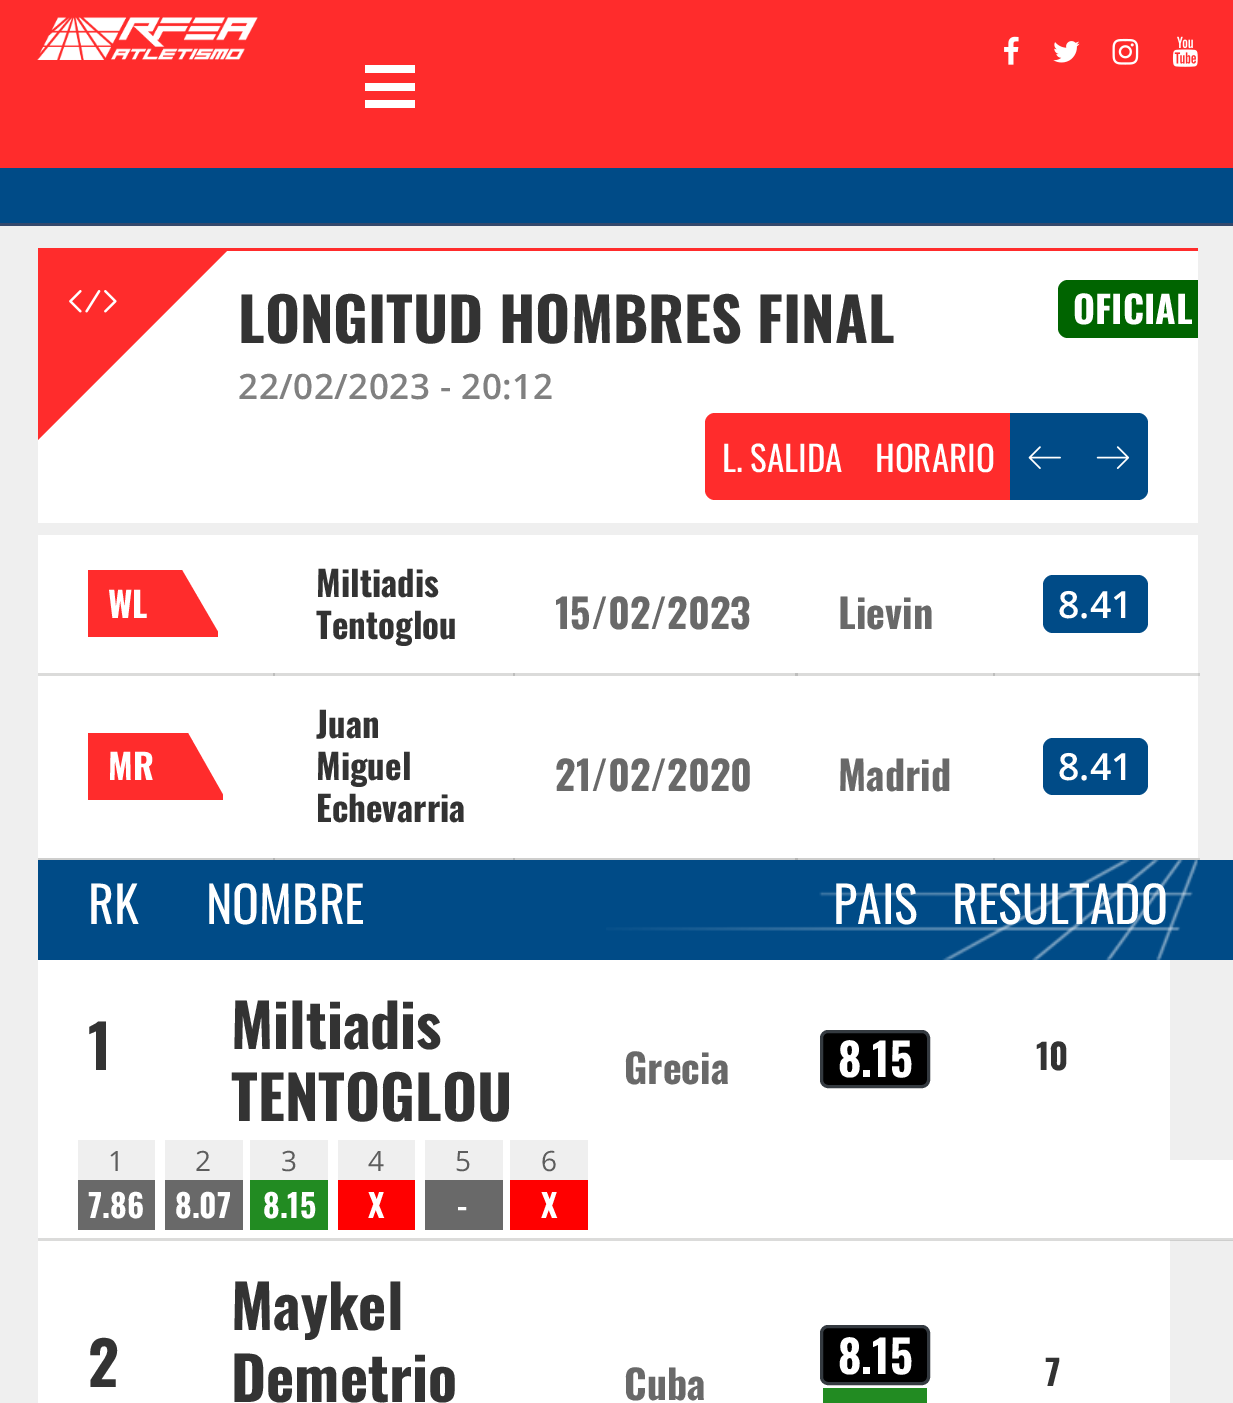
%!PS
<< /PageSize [1233 1403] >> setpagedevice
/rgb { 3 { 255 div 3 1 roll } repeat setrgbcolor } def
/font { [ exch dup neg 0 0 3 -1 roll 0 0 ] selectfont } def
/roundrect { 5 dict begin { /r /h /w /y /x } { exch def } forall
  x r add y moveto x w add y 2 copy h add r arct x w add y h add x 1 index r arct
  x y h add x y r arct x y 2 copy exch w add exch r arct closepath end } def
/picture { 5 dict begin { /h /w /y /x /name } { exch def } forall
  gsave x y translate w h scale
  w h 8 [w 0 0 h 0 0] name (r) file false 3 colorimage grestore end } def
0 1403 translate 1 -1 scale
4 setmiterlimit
239 239 239 rgb
0 0 1233 1403 rectfill
[
  [1170 1240 63 1 206 206 205]
  [1198 673 2 3 206 206 205]
  [38 858 1162 2 206 206 205]
  [273 858 2 3 179 179 178]
  [513 858 2 3 179 179 178]
  [795 858 3 2 179 179 178]
  [0 0 1233 168 255 44 44]
  [0 223 1233 3 52 73 108]
] { aload pop rgb rectfill } forall
(img/1.rgb) 37 17 221 43 picture
(img/2.rgb) 1004 36 15 29 picture
(img/3.rgb) 1053 41 27 22 picture
(img/4.rgb) 1112 38 27 27 picture
(img/5.rgb) 1172 36 26 31 picture
[
  [365 100 50 8 255 255 255]
  [365 83 50 8 255 255 255]
  [365 65 50 8 255 255 255]
  [0 168 1233 55 0 75 135]
  [38 251 1160 272 255 255 255]
  [38 248 1160 3 255 44 44]
] { aload pop rgb rectfill } forall
gsave
38 250 1160 273 rectclip
15 250 moveto 228 250 lineto 28 450 lineto -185 450 lineto closepath fill
grestore
(img/6.rgb) 69 290 48 23 picture
0 100 0 rgb
1068 280 moveto 1198 280 lineto 1198 338 lineto 1068 338 lineto 1062.5 338 1058 333.5 1058 328 curveto 1058 290 lineto 1058 284.5 1062.5 280 1068 280 curveto closepath fill
255 44 44 rgb
715 413 moveto 860 413 lineto 860 500 lineto 715 500 lineto 709.5 500 705 495.5 705 490 curveto 705 423 lineto 705 417.5 709.5 413 715 413 curveto closepath fill
860 413 150 87 rectfill
0 75 135 rgb
1010 413 68 87 rectfill
(img/7.rgb) 1028 446 33 23 picture
1078 413 moveto 1138 413 lineto 1143.5 413 1148 417.5 1148 423 curveto 1148 490 lineto 1148 495.5 1143.5 500 1138 500 curveto 1078 500 lineto closepath fill
(img/8.rgb) 1096 446 34 23 picture
255 255 255 rgb
38 535 1160 138 rectfill
219 219 218 rgb
38 673 1160 2 rectfill
gsave
88 570 130 68 rectclip
255 44 44 rgb
-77 570 moveto 182 570 lineto 221 637 lineto -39 637 lineto closepath fill
grestore
[
  [273 673 2 2 190 190 189]
  [513 673 2 2 190 190 189]
  [795 673 3 2 190 190 189]
  [993 673 2 2 190 190 189]
] { aload pop rgb rectfill } forall
0 75 135 rgb
1043 575 105 58 10 roundrect fill
255 255 255 rgb
38 676 1160 182 rectfill
219 219 218 rgb
38 675 1160 1 rectfill
gsave
88 733 135 67 rectclip
255 44 44 rgb
-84 733 moveto 188 733 lineto 226 800 lineto -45 800 lineto closepath fill
grestore
[
  [273 675 2 1 190 190 189]
  [513 675 2 1 190 190 189]
  [795 675 3 1 190 190 189]
  [993 675 2 1 190 190 189]
  [993 858 2 3 179 179 178]
] { aload pop rgb rectfill } forall
0 75 135 rgb
1043 738 105 57 10 roundrect fill
38 860 1195 100 rectfill
(img/9.rgb) 606 860 592 100 picture
255 255 255 rgb
38 960 1132 200 rectfill
0 0 0 rgb
821.5 1031.5 107 55 6.5 roundrect gsave fill grestore
52 58 64 rgb
3 setlinewidth
stroke
[
  [38 1160 1195 78 255 255 255]
  [38 1238 1195 2 219 219 218]
  [78 1140 77 40 239 239 239]
  [78 1180 77 50 105 105 105]
  [165 1140 78 40 239 239 239]
  [165 1180 78 50 105 105 105]
  [250 1140 78 40 239 239 239]
  [250 1180 78 50 34 139 34]
  [338 1140 77 40 239 239 239]
  [338 1180 77 50 255 0 0]
  [425 1140 78 40 239 239 239]
  [425 1180 78 50 105 105 105]
  [510 1140 78 40 239 239 239]
  [510 1180 78 50 255 0 0]
  [38 1241 1132 162 255 255 255]
  [38 1240 1132 1 219 219 218]
] { aload pop rgb rectfill } forall
0 0 0 rgb
821.5 1326.5 107 57 6.5 roundrect gsave fill grestore
52 58 64 rgb
stroke
34 139 34 rgb
823 1388 104 15 rectfill
/Oswald-Bold 60 font
51 51 51 rgb
238 343 moveto (LONGITUD HOMBRES FINAL) show
/Oswald-Bold 37.5 font
255 255 255 rgb
1073 324 moveto (OFICIAL) show
/OpenSans-SemiBold 35 font
128 128 128 rgb
238 399 moveto 0.5 0 (22/02/2023 - 20:12) ashow
/Oswald-Regular 35 font
255 255 255 rgb
722 472 moveto (L. SALIDA) show
875 472 moveto (HORARIO) show
/Oswald-Bold 35 font
108 618 moveto (WL) show
51 51 51 rgb
316 597 moveto (Miltiadis) show
316 639 moveto (Tentoglou) show
/Oswald-Bold 40 font
105 105 105 rgb
555 629 moveto (15/02/2023) show
838 629 moveto (Lievin) show
/OpenSans-SemiBold 37.5 font
255 255 255 rgb
1058 618 moveto (8.41) show
/Oswald-Bold 35 font
108 780 moveto (MR) show
51 51 51 rgb
[
  [(Juan) 316 738]
  [(Miguel) 316 780]
  [(Echevarria) 316 822]
] { aload pop moveto show } forall
/Oswald-Bold 40 font
105 105 105 rgb
555 791 moveto (21/02/2020) show
838 791 moveto (Madrid) show
/OpenSans-SemiBold 37.5 font
255 255 255 rgb
1058 780 moveto (8.41) show
/Oswald-Regular 50 font
[
  [(RK) 88 924]
  [(NOMBRE) 206 924]
  [(PAIS) 833 924]
  [(RESULTADO) 952 924]
] { aload pop moveto show } forall
/Oswald-Bold 60 font
51 51 51 rgb
[
  [(1) 88 1070]
  [(Miltiadis) 231 1049]
  [(TENTOGLOU) 231 1121]
] { aload pop moveto show } forall
/Oswald-Bold 40 font
105 105 105 rgb
624 1084 moveto (Grecia) show
/Oswald-Bold 45 font
255 255 255 rgb
838 1077 moveto (8.15) show
/Oswald-Bold 35 font
51 51 51 rgb
1036 1070 moveto (10) show
/OpenSans-Regular 28 font
93 93 93 rgb
108 1171 moveto (1) show
/Oswald-Bold 32 font
255 255 255 rgb
88 1218 moveto (7.86) show
/OpenSans-Regular 28 font
93 93 93 rgb
195 1171 moveto (2) show
/Oswald-Bold 32 font
255 255 255 rgb
175 1218 moveto (8.07) show
/OpenSans-Regular 28 font
93 93 93 rgb
281 1171 moveto (3) show
/Oswald-Bold 32 font
255 255 255 rgb
263 1218 moveto (8.15) show
/OpenSans-Regular 28 font
93 93 93 rgb
368 1171 moveto (4) show
/Oswald-Bold 32 font
255 255 255 rgb
368 1218 moveto (X) show
/OpenSans-Regular 28 font
93 93 93 rgb
455 1171 moveto (5) show
/Oswald-Bold 32 font
255 255 255 rgb
457 1218 moveto (-) show
/OpenSans-Regular 28 font
93 93 93 rgb
541 1171 moveto (6) show
/Oswald-Bold 32 font
255 255 255 rgb
541 1218 moveto (X) show
/Oswald-Bold 60 font
51 51 51 rgb
[
  [(2) 88 1387]
  [(Maykel) 231 1330]
  [(Demetrio) 231 1402]
] { aload pop moveto show } forall
/Oswald-Bold 40 font
105 105 105 rgb
624 1400 moveto (Cuba) show
/Oswald-Bold 45 font
255 255 255 rgb
838 1374 moveto (8.15) show
/Oswald-Bold 35 font
51 51 51 rgb
1045 1386 moveto (7) show
showpage
